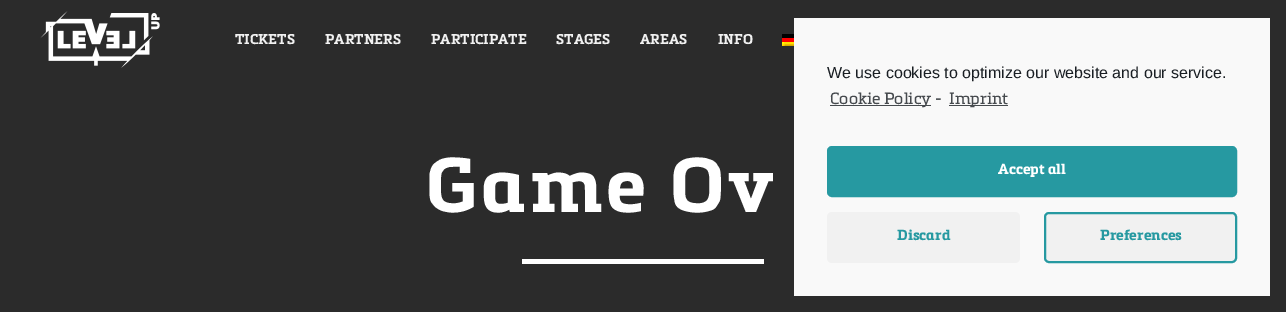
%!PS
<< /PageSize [1286 312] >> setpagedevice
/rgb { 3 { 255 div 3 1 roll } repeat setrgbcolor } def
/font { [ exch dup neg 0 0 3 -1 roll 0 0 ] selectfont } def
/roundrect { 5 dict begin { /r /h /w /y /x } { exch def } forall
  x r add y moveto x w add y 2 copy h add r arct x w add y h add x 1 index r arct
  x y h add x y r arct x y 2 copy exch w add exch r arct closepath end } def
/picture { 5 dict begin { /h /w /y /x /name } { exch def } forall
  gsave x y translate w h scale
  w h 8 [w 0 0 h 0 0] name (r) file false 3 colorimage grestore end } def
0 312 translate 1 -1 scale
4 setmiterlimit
43 43 43 rgb
0 0 1286 312 rectfill
(img/1.rgb) 40 11 120 57 picture
(img/2.rgb) 782 34 12 12 picture
[
  [522 259 242 5 255 255 255]
  [794 18 476 278 249 249 249]
  [830 105 101 1 70 74 78]
  [949 105 59 1 70 74 78]
] { aload pop rgb rectfill } forall
38 153 161 rgb
828 147 408 49 4 roundrect gsave fill grestore
2 setlinewidth
stroke
241 241 241 rgb
827 212 193 51 5 roundrect fill
1045 213 191 49 4 roundrect gsave fill grestore
38 153 161 rgb
stroke
/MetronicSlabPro-Bold 14 font
241 241 241 rgb
[
  [(TICKETS) 235 44]
  [(PARTNERS) 325 44]
  [(PARTICIPATE) 431 44]
  [(STAGES) 556 44]
  [(AREAS) 640 44]
  [(INFO) 718 44]
] { aload pop moveto show } forall
/MetronicSlabPro-Bold 76 font
255 255 255 rgb
426 212 moveto 4 0 (Game Ov) ashow
/LiberationSans-Regular 16 font
25 30 35 rgb
827 78 moveto (We use cookies to optimize our website and our service.) show
/MetronicSlabPro-Regular 16 font
70 74 78 rgb
830 104 moveto (Cookie Policy) show
25 30 35 rgb
935 104 moveto (-) show
70 74 78 rgb
949 104 moveto (Imprint) show
/MetronicSlabPro-Bold 14.5 font
255 255 255 rgb
998 174 moveto (Accept all) show
38 153 161 rgb
897 240 moveto (Discard) show
1100 240 moveto (Preferences) show
showpage
